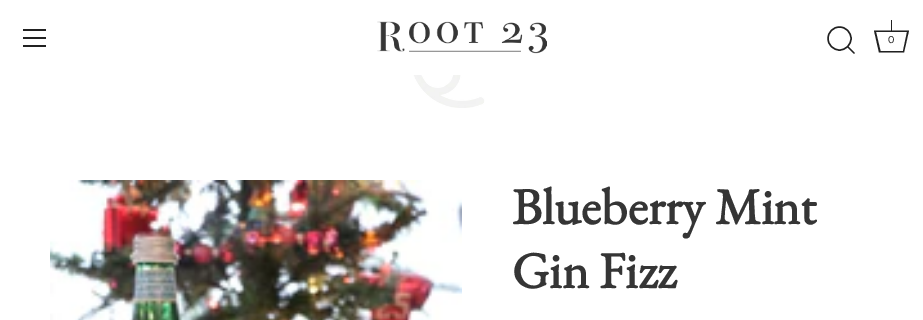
%!PS
<< /PageSize [923 320] >> setpagedevice
/rgb { 3 { 255 div 3 1 roll } repeat setrgbcolor } def
/font { [ exch dup neg 0 0 3 -1 roll 0 0 ] selectfont } def
/circle { newpath 0 360 arc closepath } def
/picture { 5 dict begin { /h /w /y /x /name } { exch def } forall
  gsave x y translate w h scale
  w h 8 [w 0 0 h 0 0] name (r) file false 3 colorimage grestore end } def
0 320 translate 1 -1 scale
4 setmiterlimit
255 255 255 rgb
0 0 923 320 rectfill
[
  [23 29 23 2 33 33 33]
  [23 37 23 2 33 33 33]
  [23 45 23 2 33 33 33]
] { aload pop rgb rectfill } forall
(img/1.rgb) 377 21 170 33 picture
1.4 setlinewidth
839.5 38.5 11.5 circle stroke
1 setlinecap
1 setlinejoin
854 53 moveto 848 47 lineto stroke
907 32 moveto 903 51 lineto 880.5 51 lineto 876 32 lineto 907 32 lineto 909 30.5 moveto 874 30.5 lineto 879 52.5 lineto 904 52.5 lineto closepath fill
891 20 1 11 rectfill
(img/2.rgb) 413 75 72 33 picture
(img/3.rgb) 50 180 412 140 picture
/Figtree-Regular 10 font
888 43 moveto (0) show
/EBGaramond-Bold 51.25 font
53 53 53 rgb
512 224 moveto (Blueberry Mint) show
512 288 moveto (Gin Fizz) show
showpage
